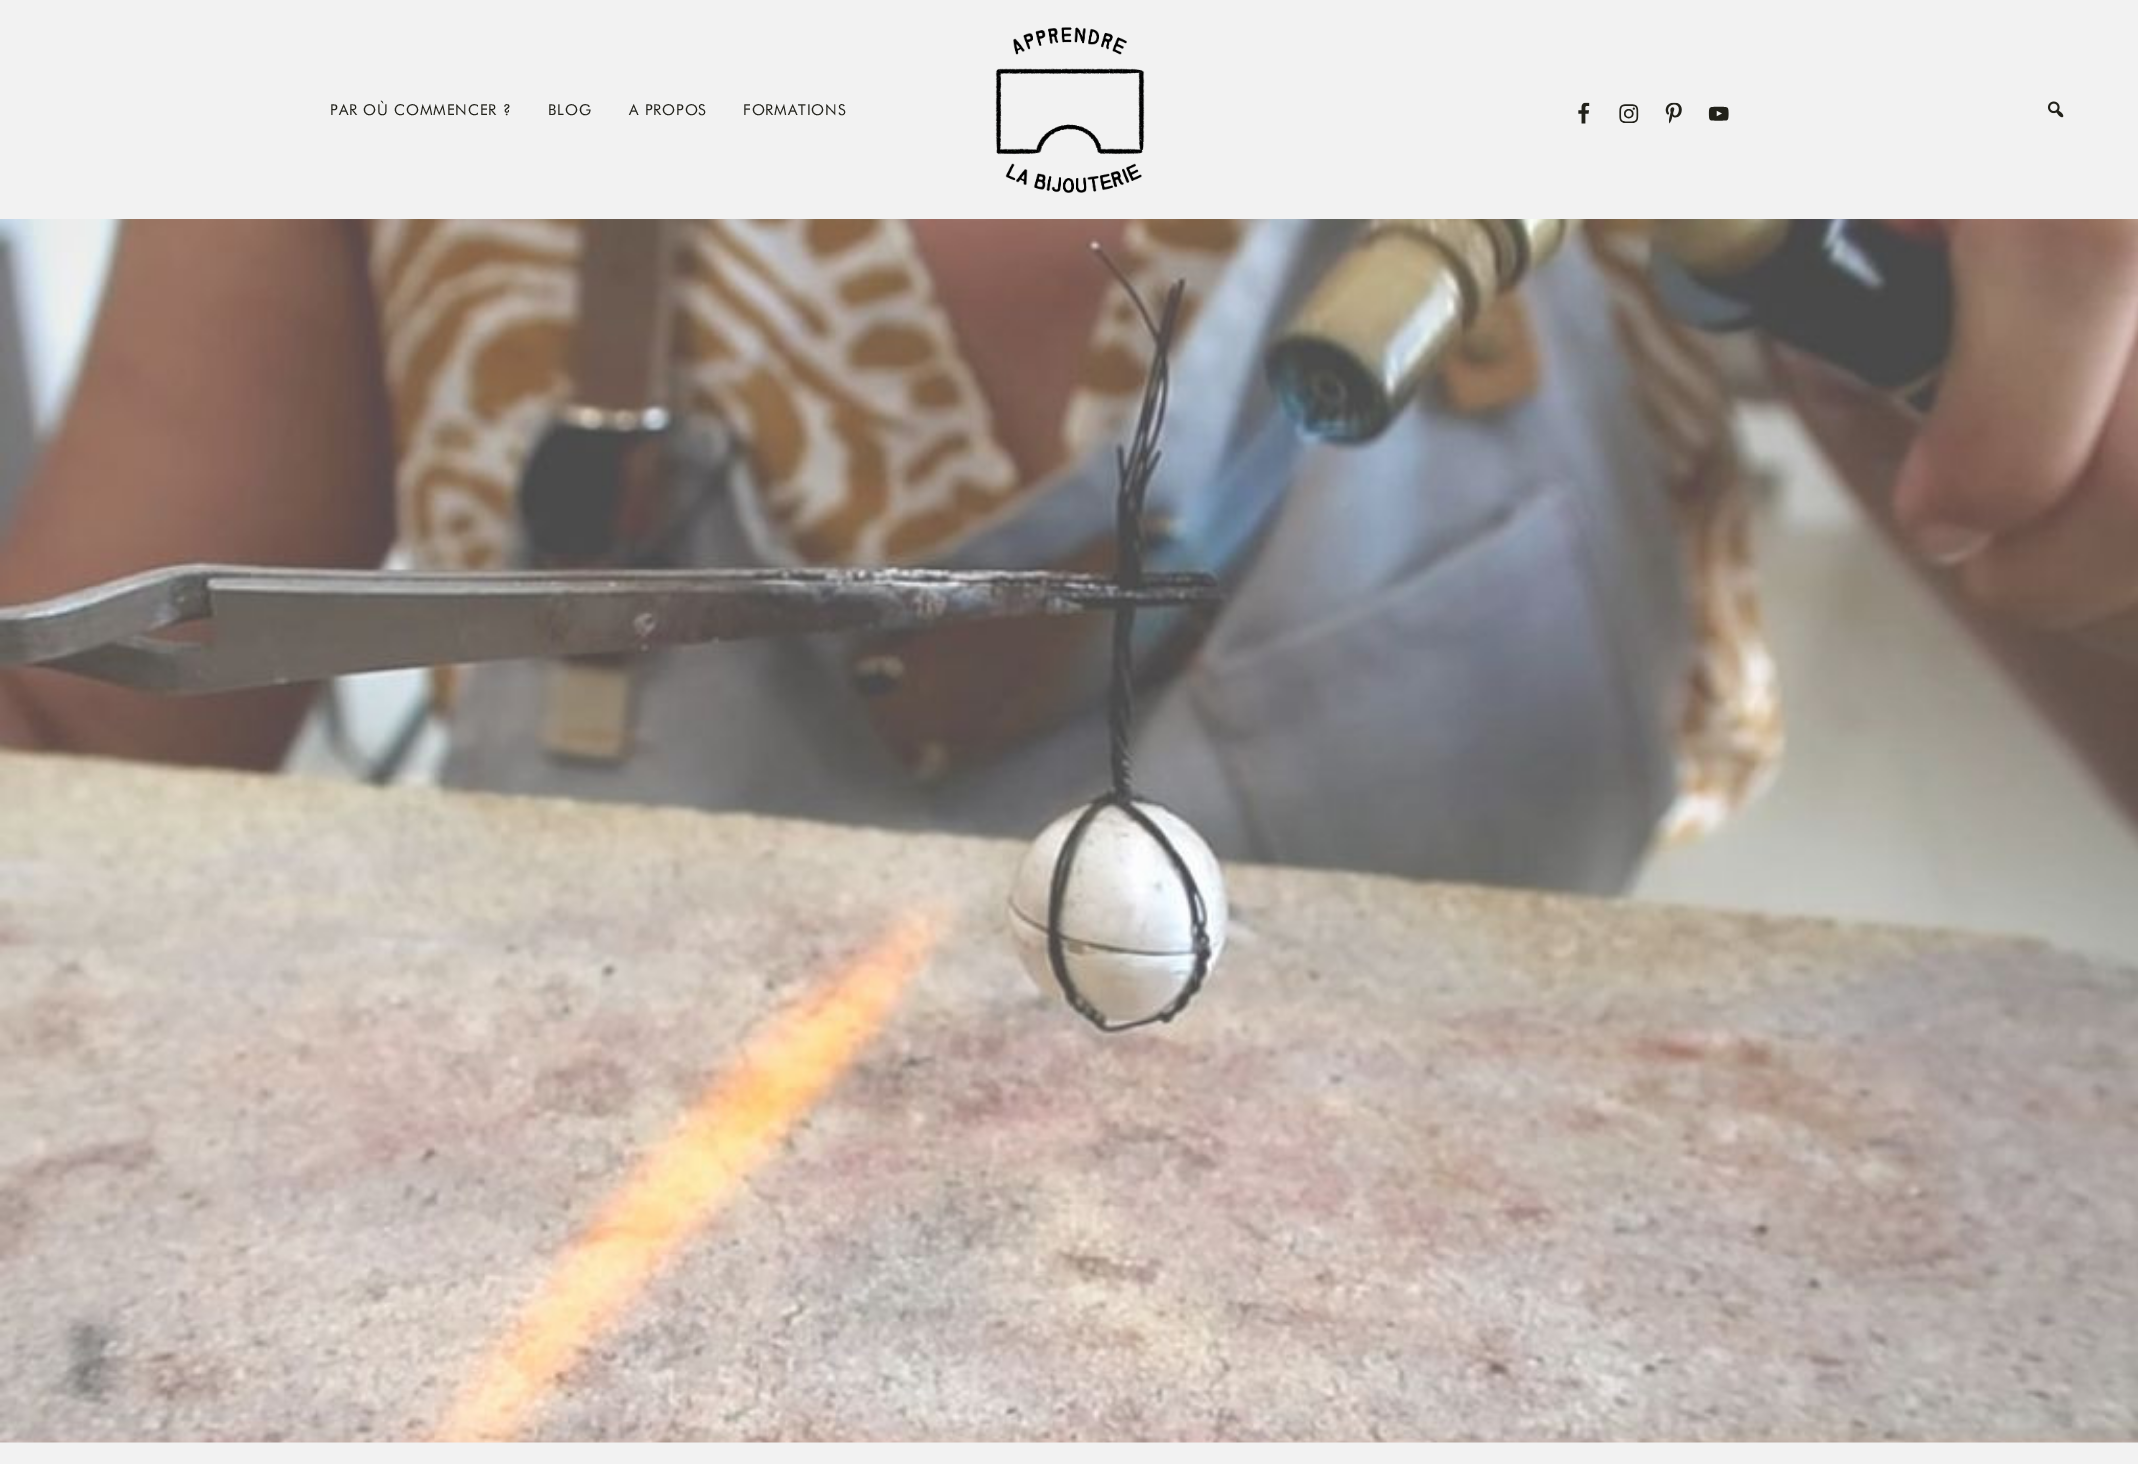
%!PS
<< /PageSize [2138 1464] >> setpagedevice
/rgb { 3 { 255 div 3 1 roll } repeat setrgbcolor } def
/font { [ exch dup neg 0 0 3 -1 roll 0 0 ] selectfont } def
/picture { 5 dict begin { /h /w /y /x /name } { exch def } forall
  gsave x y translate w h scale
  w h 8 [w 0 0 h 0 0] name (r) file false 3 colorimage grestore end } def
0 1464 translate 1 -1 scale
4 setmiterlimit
242 242 242 rgb
0 0 2138 1464 rectfill
(img/1.rgb) 995 27 150 166 picture
(img/2.rgb) 1578 102 12 22 picture
(img/3.rgb) 1619 104 20 19 picture
(img/4.rgb) 1665 102 17 22 picture
(img/5.rgb) 1708 106 21 15 picture
(img/6.rgb) 2047 101 17 17 picture
(img/7.rgb) 0 219 2138 1224 picture
/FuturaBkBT-Regular 15 font
33 33 26 rgb
330 115 moveto 0.9 0 (PAR OÙ COMMENCER ?) ashow
548 115 moveto 0.9 0 (BLOG) ashow
629 115 moveto 0.9 0 (A PROPOS) ashow
743 115 moveto 0.9 0 (FORMATIONS) ashow
showpage
